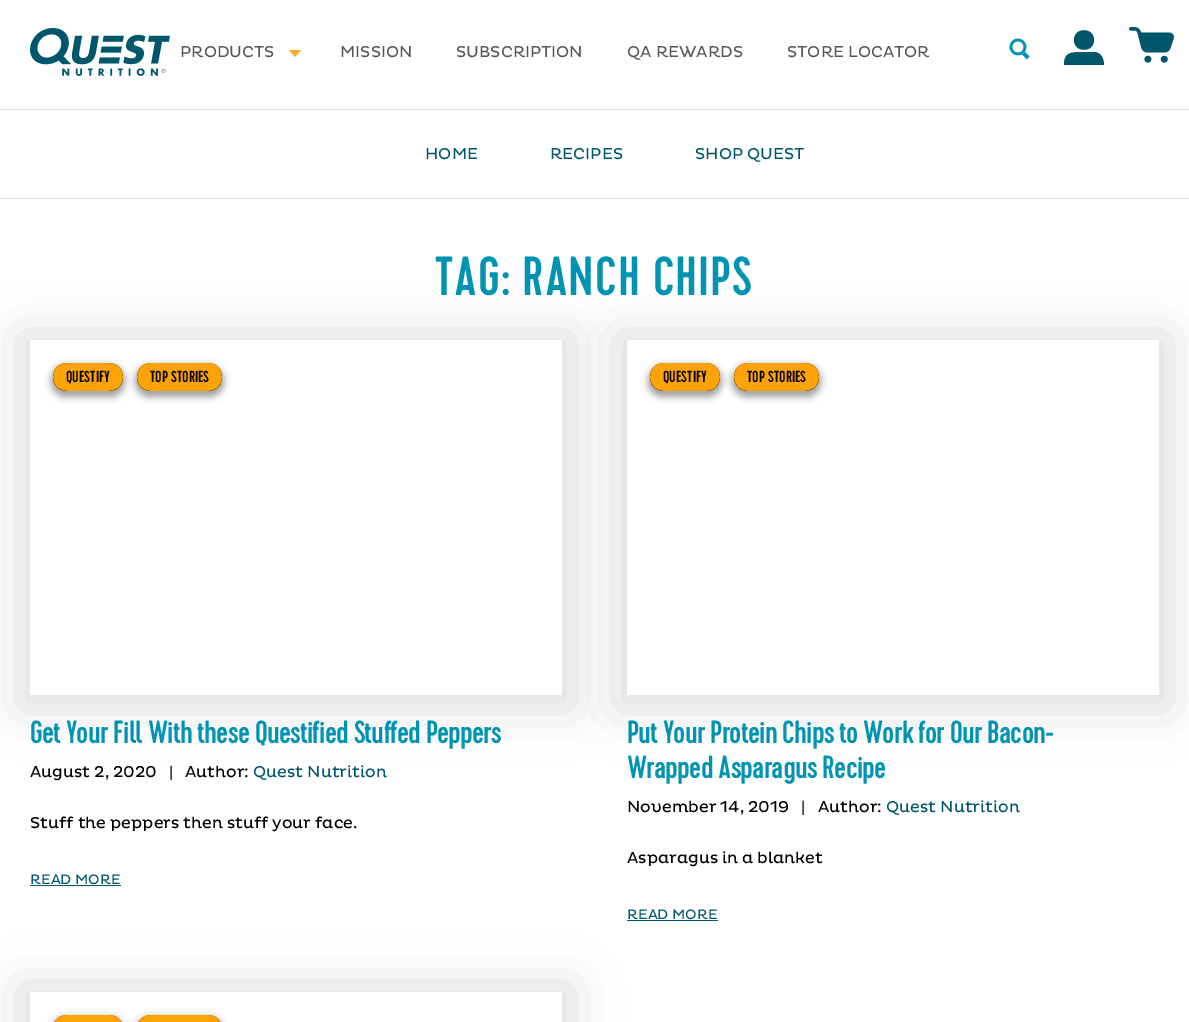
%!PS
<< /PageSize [1189 1022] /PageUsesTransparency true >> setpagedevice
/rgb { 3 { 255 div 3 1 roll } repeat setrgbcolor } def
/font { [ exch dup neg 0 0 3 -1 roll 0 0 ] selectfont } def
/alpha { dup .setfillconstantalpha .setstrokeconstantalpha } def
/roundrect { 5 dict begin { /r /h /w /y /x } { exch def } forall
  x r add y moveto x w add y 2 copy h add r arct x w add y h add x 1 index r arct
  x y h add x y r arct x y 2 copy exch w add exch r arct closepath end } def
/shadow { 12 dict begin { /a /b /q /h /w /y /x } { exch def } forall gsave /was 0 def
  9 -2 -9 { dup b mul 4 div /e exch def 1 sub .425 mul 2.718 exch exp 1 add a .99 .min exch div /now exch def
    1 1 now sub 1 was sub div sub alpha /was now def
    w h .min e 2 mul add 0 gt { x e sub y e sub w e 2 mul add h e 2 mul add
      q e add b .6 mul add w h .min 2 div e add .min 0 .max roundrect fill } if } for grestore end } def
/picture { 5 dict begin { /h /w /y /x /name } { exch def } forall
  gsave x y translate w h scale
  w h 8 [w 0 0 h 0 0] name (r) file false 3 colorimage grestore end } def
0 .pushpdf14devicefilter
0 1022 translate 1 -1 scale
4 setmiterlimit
255 255 255 rgb
0 0 1189 1022 rectfill
225 225 225 rgb
0 109 1189 1 rectfill
(img/1.rgb) 30 28 140 48 picture
250 172 42 rgb
295 57 moveto 289 50 lineto 301 50 lineto closepath fill
(img/2.rgb) 1009 38 21 22 picture
0 86 107 rgb
1074 40 moveto 1074 27 1094 27 1094 40 curveto 1094 53 1074 53 1074 40 curveto closepath 1094 52 moveto 1081 52 lineto 1070 52 1064 53 1064 65 curveto 1104 65 lineto 1104 59 1101 52 1094 52 curveto closepath fill
(img/3.rgb) 1129 27 45 36 picture
225 225 225 rgb
0 198 1189 1 rectfill
gsave
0 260 moveto 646 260 lineto 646 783 lineto 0 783 lineto closepath 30 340 moveto 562 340 lineto 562 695 lineto 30 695 lineto closepath eoclip newpath
0 0 0 rgb
19 333 554 377 0 24 0.13 shadow
grestore
251 163 8 rgb
53 363 70 28 13 roundrect fill
gsave
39 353 moveto 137 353 lineto 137 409 lineto 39 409 lineto closepath 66 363 moveto 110 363 lineto 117 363 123 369 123 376 curveto 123 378 lineto 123 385 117 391 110 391 curveto 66 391 lineto 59 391 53 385 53 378 curveto 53 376 lineto 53 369 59 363 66 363 curveto closepath eoclip newpath
0 0 0 rgb
51 365 74 32 15 3.5 0.36 shadow
grestore
137 363 85 28 13 roundrect fill
gsave
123 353 moveto 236 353 lineto 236 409 lineto 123 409 lineto closepath 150 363 moveto 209 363 lineto 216 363 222 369 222 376 curveto 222 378 lineto 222 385 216 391 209 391 curveto 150 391 lineto 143 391 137 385 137 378 curveto 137 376 lineto 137 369 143 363 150 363 curveto closepath eoclip newpath
0 0 0 rgb
135 365 89 32 15 3.5 0.36 shadow
grestore
0 86 107 rgb
30 885 91 1 rectfill
gsave
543 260 moveto 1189 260 lineto 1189 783 lineto 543 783 lineto closepath 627 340 moveto 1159 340 lineto 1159 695 lineto 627 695 lineto closepath eoclip newpath
0 0 0 rgb
616 333 554 377 0 24 0.13 shadow
grestore
251 163 8 rgb
650 363 70 28 13 roundrect fill
gsave
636 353 moveto 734 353 lineto 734 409 lineto 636 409 lineto closepath 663 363 moveto 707 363 lineto 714 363 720 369 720 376 curveto 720 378 lineto 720 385 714 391 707 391 curveto 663 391 lineto 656 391 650 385 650 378 curveto 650 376 lineto 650 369 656 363 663 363 curveto closepath eoclip newpath
0 0 0 rgb
648 365 74 32 15 3.5 0.36 shadow
grestore
734 363 85 28 13 roundrect fill
gsave
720 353 moveto 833 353 lineto 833 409 lineto 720 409 lineto closepath 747 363 moveto 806 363 lineto 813 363 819 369 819 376 curveto 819 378 lineto 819 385 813 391 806 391 curveto 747 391 lineto 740 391 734 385 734 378 curveto 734 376 lineto 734 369 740 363 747 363 curveto closepath eoclip newpath
0 0 0 rgb
732 365 89 32 15 3.5 0.36 shadow
grestore
0 86 107 rgb
627 920 91 1 rectfill
gsave
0 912 moveto 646 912 lineto 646 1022 lineto 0 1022 lineto closepath 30 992 moveto 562 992 lineto 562 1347 lineto 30 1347 lineto closepath eoclip newpath
0 0 0 rgb
19 985 554 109 0 24 0.13 shadow
grestore
251 163 8 rgb
53 1015 70 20 13 roundrect fill
gsave
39 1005 moveto 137 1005 lineto 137 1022 lineto 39 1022 lineto closepath 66 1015 moveto 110 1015 lineto 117 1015 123 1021 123 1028 curveto 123 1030 lineto 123 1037 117 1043 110 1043 curveto 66 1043 lineto 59 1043 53 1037 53 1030 curveto 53 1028 lineto 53 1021 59 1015 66 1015 curveto closepath eoclip newpath
0 0 0 rgb
51 1017 74 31 15 3.5 0.36 shadow
grestore
137 1015 85 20 13 roundrect fill
gsave
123 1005 moveto 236 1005 lineto 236 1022 lineto 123 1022 lineto closepath 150 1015 moveto 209 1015 lineto 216 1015 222 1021 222 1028 curveto 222 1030 lineto 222 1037 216 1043 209 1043 curveto 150 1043 lineto 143 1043 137 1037 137 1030 curveto 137 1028 lineto 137 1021 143 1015 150 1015 curveto closepath eoclip newpath
0 0 0 rgb
135 1017 89 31 15 3.5 0.36 shadow
grestore
/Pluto-Regular 16 font
87 87 87 rgb
[
  [(PRODUCTS) 180 57]
  [(MISSION) 340 57]
  [(SUBSCRIPTION) 456 57]
  [(QA REWARDS) 627 57]
  [(STORE LOCATOR) 787 57]
] { aload pop moveto show } forall
0 86 107 rgb
[
  [(HOME) 425 159]
  [(RECIPES) 550 159]
  [(SHOP QUEST) 695 159]
] { aload pop moveto show } forall
/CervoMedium-Regular 55 font
0 147 178 rgb
435 295 moveto 1 0 (TAG: RANCH CHIPS) ashow
/CervoMedium-Regular 16 font
0 0 0 rgb
66 382 moveto (QUESTIFY) show
150 382 moveto (TOP STORIES) show
/CervoMedium-Regular 32 font
0 147 178 rgb
30 743 moveto -0.8 0 (Get Your Fill With these Questified Stuffed Peppers) ashow
/Pluto-Regular 16 font
0 0 0 rgb
[
  [(August 2, 2020) 30 777]
  [(|) 169 777]
  [(Author:) 185 777]
] { aload pop moveto show } forall
0 86 107 rgb
253 777 moveto (Quest Nutrition) show
0 0 0 rgb
30 828 moveto (Stuff the peppers then stuff your face.) show
/Pluto-Regular 14 font
0 86 107 rgb
30 884 moveto (READ MORE) show
/CervoMedium-Regular 16 font
0 0 0 rgb
663 382 moveto (QUESTIFY) show
747 382 moveto (TOP STORIES) show
/CervoMedium-Regular 32 font
0 147 178 rgb
627 743 moveto -0.8 0 (Put Your Protein Chips to Work for Our Bacon-) ashow
627 778 moveto -0.8 0 (Wrapped Asparagus Recipe) ashow
/Pluto-Regular 16 font
0 0 0 rgb
[
  [(November 14, 2019) 627 812]
  [(|) 801 812]
  [(Author:) 818 812]
] { aload pop moveto show } forall
0 86 107 rgb
886 812 moveto (Quest Nutrition) show
0 0 0 rgb
627 863 moveto (Asparagus in a blanket) show
/Pluto-Regular 14 font
0 86 107 rgb
627 919 moveto (READ MORE) show
.poppdf14devicefilter showpage
